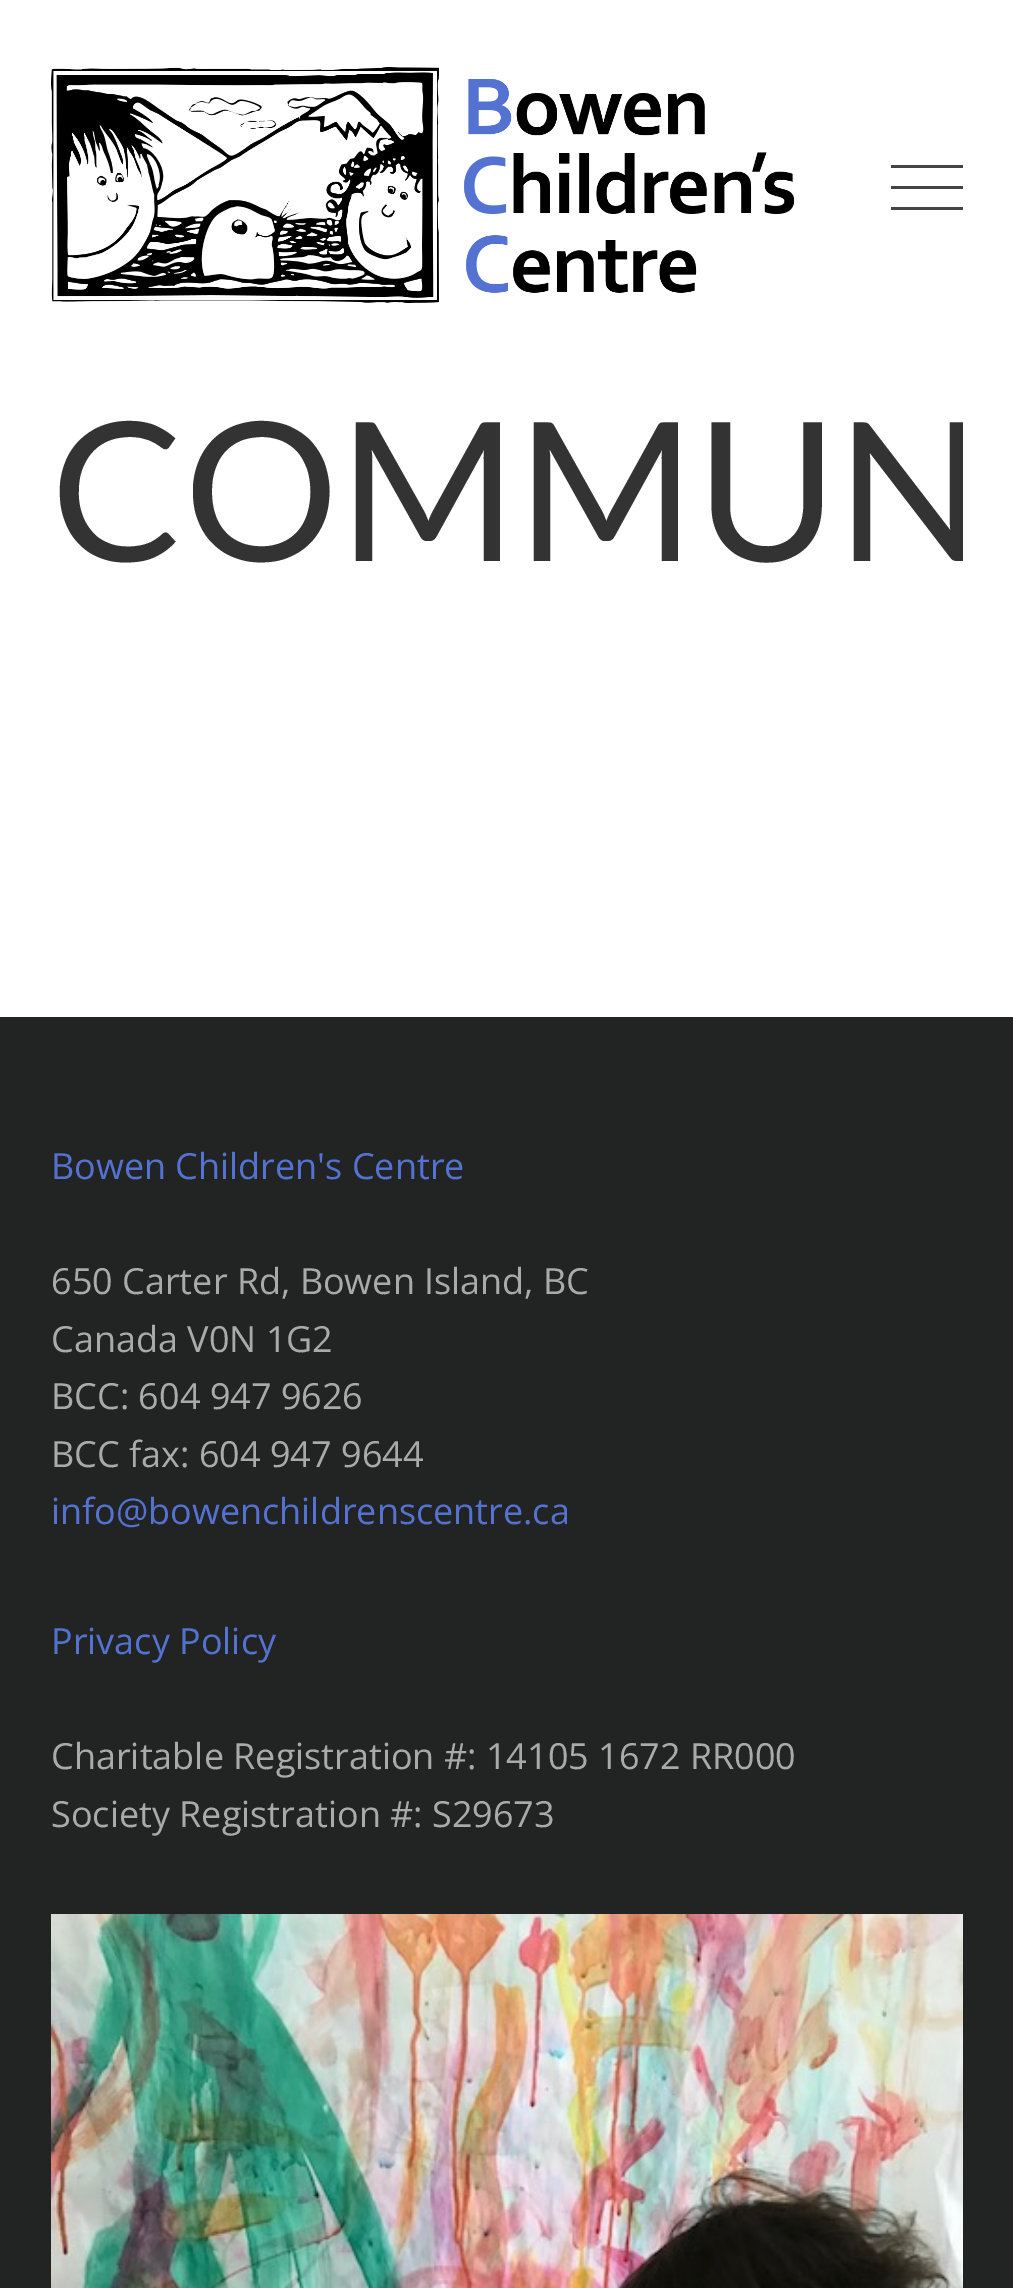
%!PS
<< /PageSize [1013 2288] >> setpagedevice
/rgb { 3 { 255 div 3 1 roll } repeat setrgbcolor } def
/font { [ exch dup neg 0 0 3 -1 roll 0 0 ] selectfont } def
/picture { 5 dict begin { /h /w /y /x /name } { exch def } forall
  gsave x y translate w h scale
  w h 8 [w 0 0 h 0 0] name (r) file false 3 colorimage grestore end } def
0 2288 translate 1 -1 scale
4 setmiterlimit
255 255 255 rgb
0 0 1013 2288 rectfill
(img/1.rgb) 51 67 743 236 picture
[
  [891 165 72 3 68 68 68]
  [891 186 72 3 68 68 68]
  [891 207 72 3 68 68 68]
  [0 1017 1013 1271 34 35 35]
] { aload pop rgb rectfill } forall
(img/2.rgb) 51 1914 912 374 picture
gsave
51 372 912 465 rectclip
/Lato-Regular 194 font
51 51 51 rgb
51 561 moveto (COMMUN) show
grestore
/OpenSans-Regular 36 font
84 114 210 rgb
51 1179 moveto (Bowen Children's Centre) show
170 170 170 rgb
[
  [(650 Carter Rd, Bowen Island, BC) 51 1294]
  [(Canada V0N 1G2) 51 1352]
  [(BCC: 604 947 9626) 51 1409]
  [(BCC fax: 604 947 9644) 51 1467]
] { aload pop moveto show } forall
84 114 210 rgb
51 1524 moveto (info@bowenchildrenscentre.ca) show
51 1654 moveto (Privacy Policy) show
170 170 170 rgb
51 1769 moveto (Charitable Registration #: 14105 1672 RR000) show
51 1827 moveto (Society Registration #: S29673) show
showpage
